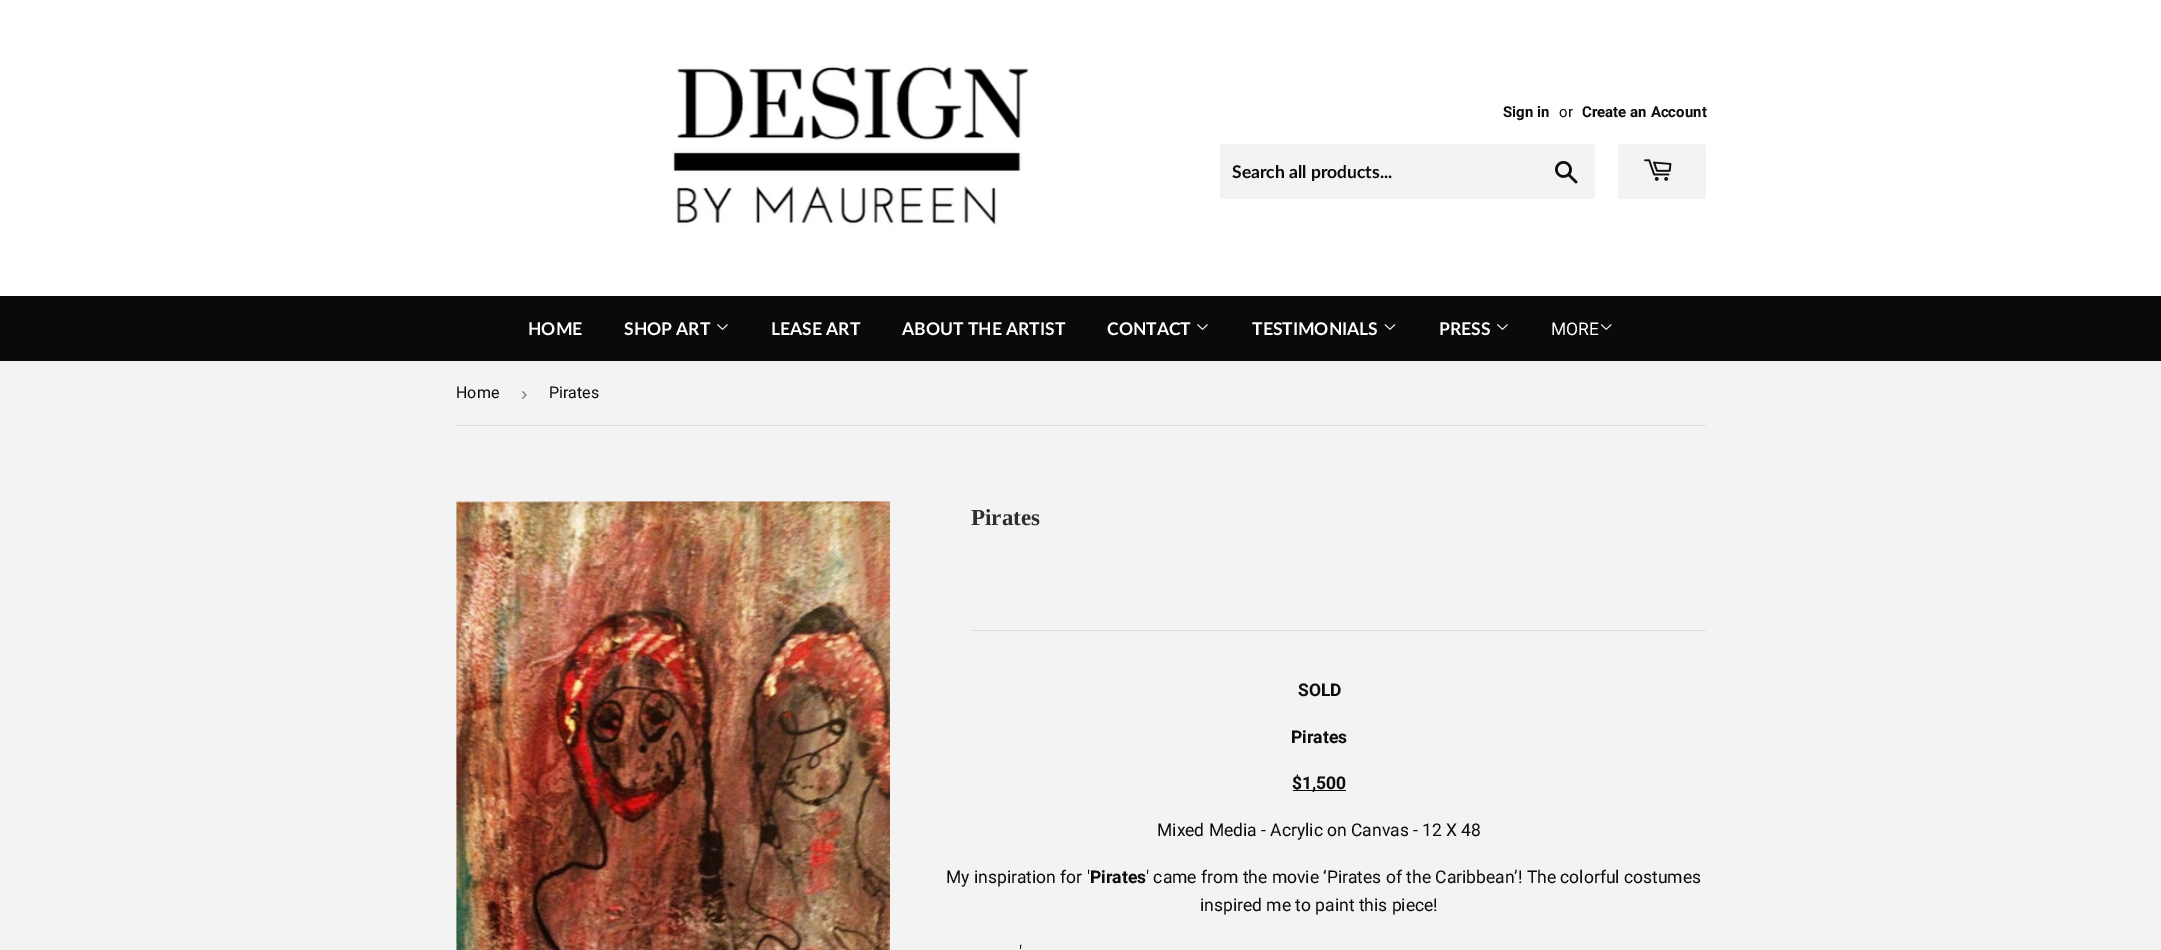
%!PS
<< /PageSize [2161 950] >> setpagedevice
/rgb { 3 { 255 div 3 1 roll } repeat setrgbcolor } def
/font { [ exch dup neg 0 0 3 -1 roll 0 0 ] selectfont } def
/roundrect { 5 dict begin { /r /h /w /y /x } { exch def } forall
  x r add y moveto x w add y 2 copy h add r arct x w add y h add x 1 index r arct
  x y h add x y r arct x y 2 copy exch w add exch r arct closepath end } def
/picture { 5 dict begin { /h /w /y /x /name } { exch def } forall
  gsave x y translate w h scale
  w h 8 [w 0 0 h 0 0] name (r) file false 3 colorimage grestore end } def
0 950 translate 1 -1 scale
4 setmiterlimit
243 243 243 rgb
0 0 2161 950 rectfill
255 255 255 rgb
0 0 2161 296 rectfill
(img/1.rgb) 672 65 357 161 picture
243 243 243 rgb
1220 144 375 55 2.5 roundrect fill
(img/2.rgb) 1555 161 23 23 picture
1618 144 88 55 2.5 roundrect fill
(img/3.rgb) 1644 159 28 22 picture
10 10 10 rgb
0 296 2161 65 rectfill
(img/4.rgb) 717 324 11 6 picture
(img/4.rgb) 1197 324 11 6 picture
(img/5.rgb) 1384 324 12 6 picture
(img/4.rgb) 1497 324 11 6 picture
(img/6.rgb) 1600 324 12 6 picture
222 222 222 rgb
456 425 1250 1 rectfill
(img/7.rgb) 456 501 434 449 picture
971 630 735 1 rectfill
10 10 10 rgb
1293 790 53 1 rectfill
/Roboto-Bold 15 font
13 13 13 rgb
1503 117 moveto (Sign in) show
/Roboto-Regular 15 font
1559 117 moveto (or) show
/Roboto-Bold 15 font
1582 117 moveto (Create an Account) show
/Lato-Bold 17.5 font
1232 178 moveto (Search all products...) show
255 255 255 rgb
[
  [(HOME) 528 335]
  [(SHOP ART) 624 335]
  [(LEASE ART) 771 335]
  [(ABOUT THE ARTIST) 902 335]
  [(CONTACT) 1107 335]
  [(TESTIMONIALS) 1252 335]
  [(PRESS) 1439 335]
] { aload pop moveto show } forall
/Roboto-Regular 17.5 font
1551 335 moveto (MORE) show
/Roboto-Regular 16 font
13 13 13 rgb
456 398 moveto (Home) show
/LiberationSans-Regular 19 font
118 118 118 rgb
521 400 moveto (›) show
/Roboto-Regular 16 font
13 13 13 rgb
549 398 moveto (Pirates) show
/LiberationSerif-Bold 23 font
47 47 47 rgb
971 525 moveto (Pirates) show
/Roboto-Bold 17.5 font
13 13 13 rgb
[
  [(SOLD) 1298 696]
  [(Pirates) 1291 743]
  [($1,500) 1292 789]
] { aload pop moveto show } forall
/Roboto-Regular 17.5 font
1157 836 moveto (Mixed Media - Acrylic on Canvas - 12 X 48) show
946 883 moveto (My inspiration for ') show
/Roboto-Bold 17.5 font
1090 883 moveto (Pirates) show
/Roboto-Regular 17.5 font
[
  [(' came from the movie ‘Pirates of the Caribbean’! The colorful costumes) 1146 883]
  [(inspired me to paint this piece!) 1200 911]
  [(') 1019 958]
] { aload pop moveto show } forall
showpage
